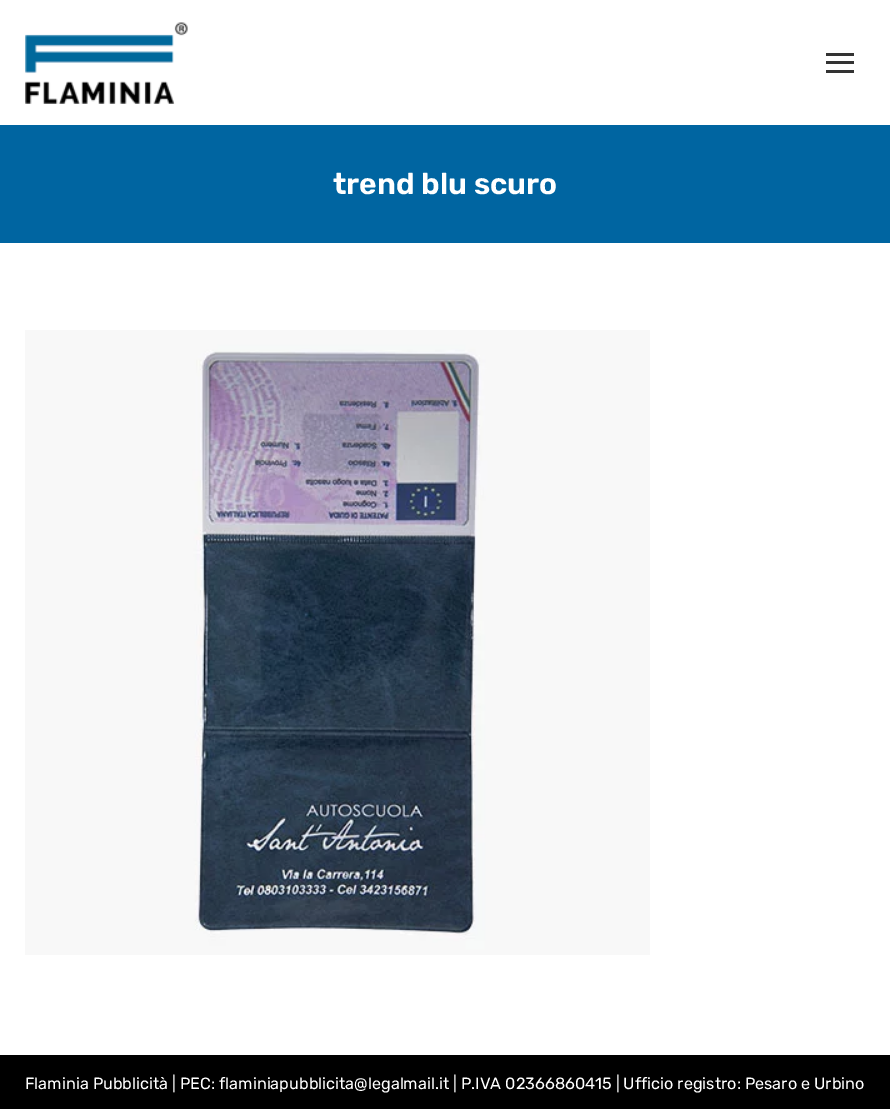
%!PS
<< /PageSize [890 1109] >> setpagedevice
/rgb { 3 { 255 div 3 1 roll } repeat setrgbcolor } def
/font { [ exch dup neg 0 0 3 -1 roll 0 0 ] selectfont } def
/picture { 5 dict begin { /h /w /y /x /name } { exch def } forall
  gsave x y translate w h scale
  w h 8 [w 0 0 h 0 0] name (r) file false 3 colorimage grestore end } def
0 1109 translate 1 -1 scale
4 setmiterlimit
255 255 255 rgb
0 0 890 1109 rectfill
(img/1.rgb) 25 22 163 82 picture
[
  [826 53 28 3 51 51 51]
  [826 61 28 3 51 51 51]
  [826 70 28 3 51 51 51]
  [0 125 890 118 0 101 161]
] { aload pop rgb rectfill } forall
(img/2.rgb) 25 330 625 625 picture
0 0 0 rgb
0 1055 890 54 rectfill
/Rubik-SemiBold 30 font
255 255 255 rgb
333 194 moveto (trend blu scuro) show
/Rubik-Regular 16.25 font
25 1089 moveto (Flaminia Pubblicità | PEC: flaminiapubblicita@legalmail.it | P.IVA 02366860415 | Ufficio registro: Pesaro e Urbino) show
showpage
